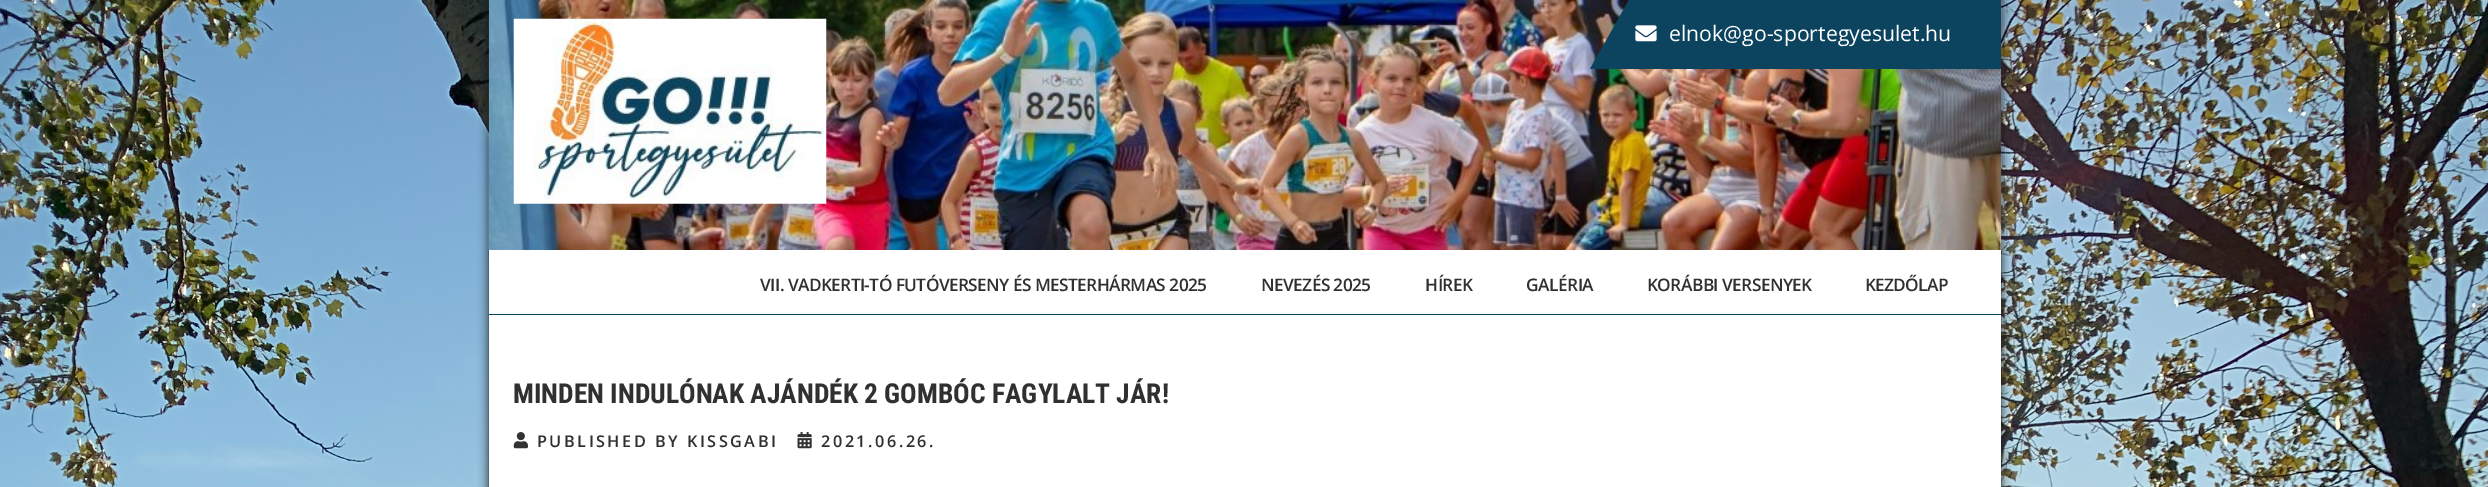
%!PS
<< /PageSize [2488 487] /PageUsesTransparency true >> setpagedevice
/rgb { 3 { 255 div 3 1 roll } repeat setrgbcolor } def
/font { [ exch dup neg 0 0 3 -1 roll 0 0 ] selectfont } def
/alpha { dup .setfillconstantalpha .setstrokeconstantalpha } def
/roundrect { 5 dict begin { /r /h /w /y /x } { exch def } forall
  x r add y moveto x w add y 2 copy h add r arct x w add y h add x 1 index r arct
  x y h add x y r arct x y 2 copy exch w add exch r arct closepath end } def
/shadow { 12 dict begin { /a /b /q /h /w /y /x } { exch def } forall gsave /was 0 def
  9 -2 -9 { dup b mul 4 div /e exch def 1 sub .425 mul 2.718 exch exp 1 add a .99 .min exch div /now exch def
    1 1 now sub 1 was sub div sub alpha /was now def
    w h .min e 2 mul add 0 gt { x e sub y e sub w e 2 mul add h e 2 mul add
      q e add b .6 mul add w h .min 2 div e add .min 0 .max roundrect fill } if } for grestore end } def
/picture { 5 dict begin { /h /w /y /x /name } { exch def } forall
  gsave x y translate w h scale
  w h 8 [w 0 0 h 0 0] name (r) file false 3 colorimage grestore end } def
0 .pushpdf14devicefilter
0 487 translate 1 -1 scale
4 setmiterlimit
255 255 255 rgb
0 0 2488 487 rectfill
(img/1.rgb) 0 0 2488 487 picture
17 17 17 rgb
489 -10 1512 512 0 5 1 shadow
255 255 255 rgb
489 250 1512 237 rectfill
(img/2.rgb) 488 0 1514 250 picture
12 68 96 rgb
489 314 1512 1 rectfill
(img/3.rgb) 513 18 314 186 picture
1629 0 moveto 1995 0 lineto 1956 69 lineto 1590 69 lineto closepath fill
(img/4.rgb) 1635 25 22 17 picture
(img/5.rgb) 513 432 15 17 picture
(img/6.rgb) 797 432 15 17 picture
/OpenSans-Regular 21.25 font
255 255 255 rgb
1669 41 moveto (elnok@go-sportegyesulet.hu) show
gsave
489 0 1512 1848 rectclip
12 68 96 rgb
1982 0 moveto 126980 0 lineto 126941 69 lineto 1942 69 lineto closepath fill
grestore
/OpenSans-SemiBold 17.3 font
48 48 48 rgb
760 291 moveto -0.6 0 (VII. VADKERTI-TÓ FUTÓVERSENY ÉS MESTERHÁRMAS 2025) ashow
1261 291 moveto -0.6 0 (NEVEZÉS 2025) ashow
1425 291 moveto -0.5 0 (HÍREK) ashow
1526 291 moveto -0.5 0 (GALÉRIA) ashow
1647 291 moveto -0.6 0 (KORÁBBI VERSENYEK) ashow
1865 291 moveto -0.75 0 (KEZDŐLAP) ashow
/RobotoCondensed-Bold 27.5 font
513 403 moveto (MINDEN INDULÓNAK AJÁNDÉK 2 GOMBÓC FAGYLALT JÁR!) show
/OpenSans-SemiBold 16.25 font
537 447 moveto 2.5 0 (PUBLISHED BY KISSGABI) ashow
821 447 moveto 2.5 0 (2021.06.26.) ashow
.poppdf14devicefilter showpage
